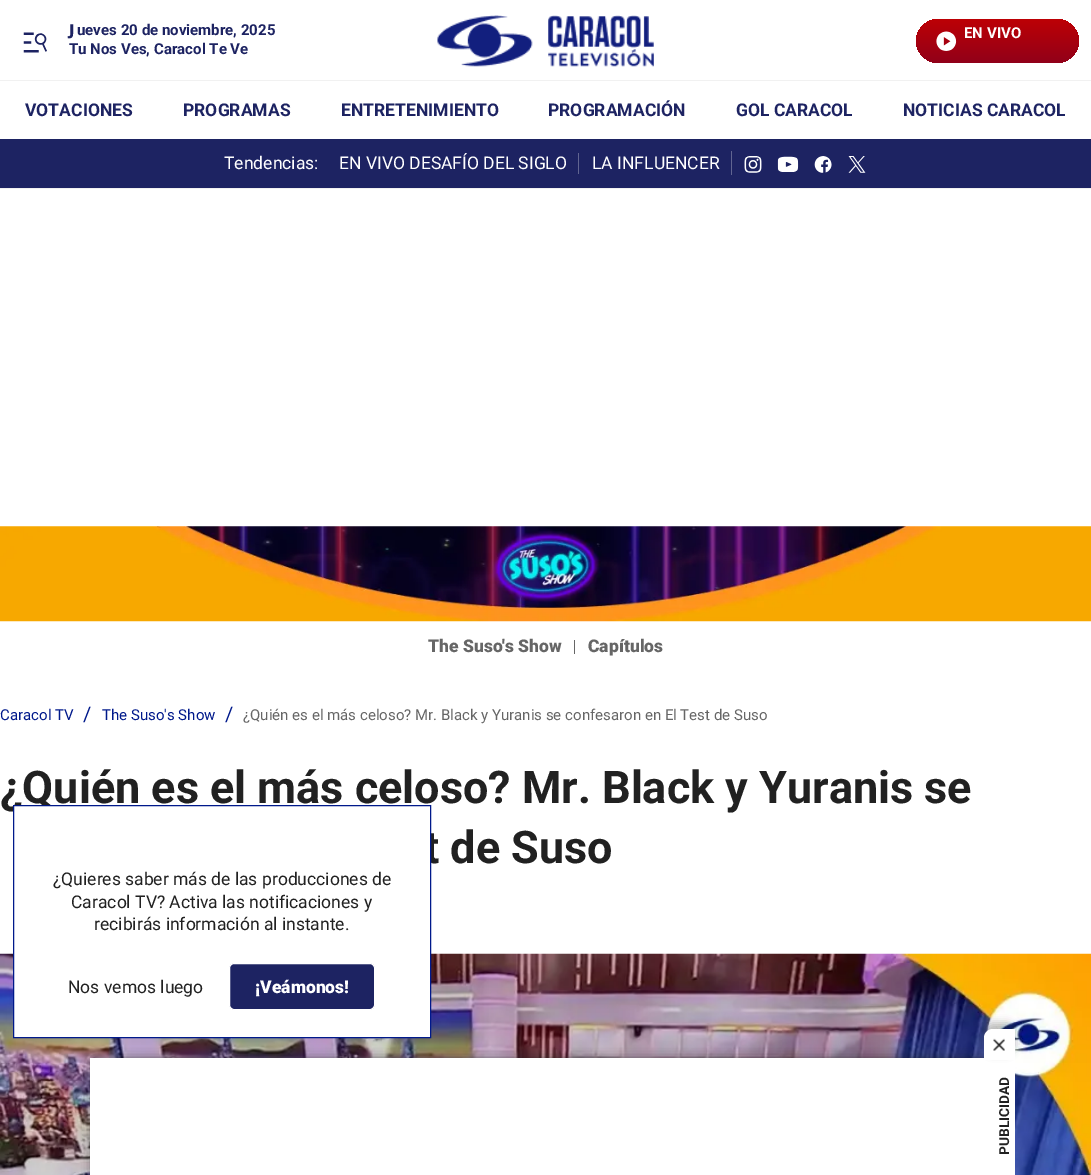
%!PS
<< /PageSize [1091 1175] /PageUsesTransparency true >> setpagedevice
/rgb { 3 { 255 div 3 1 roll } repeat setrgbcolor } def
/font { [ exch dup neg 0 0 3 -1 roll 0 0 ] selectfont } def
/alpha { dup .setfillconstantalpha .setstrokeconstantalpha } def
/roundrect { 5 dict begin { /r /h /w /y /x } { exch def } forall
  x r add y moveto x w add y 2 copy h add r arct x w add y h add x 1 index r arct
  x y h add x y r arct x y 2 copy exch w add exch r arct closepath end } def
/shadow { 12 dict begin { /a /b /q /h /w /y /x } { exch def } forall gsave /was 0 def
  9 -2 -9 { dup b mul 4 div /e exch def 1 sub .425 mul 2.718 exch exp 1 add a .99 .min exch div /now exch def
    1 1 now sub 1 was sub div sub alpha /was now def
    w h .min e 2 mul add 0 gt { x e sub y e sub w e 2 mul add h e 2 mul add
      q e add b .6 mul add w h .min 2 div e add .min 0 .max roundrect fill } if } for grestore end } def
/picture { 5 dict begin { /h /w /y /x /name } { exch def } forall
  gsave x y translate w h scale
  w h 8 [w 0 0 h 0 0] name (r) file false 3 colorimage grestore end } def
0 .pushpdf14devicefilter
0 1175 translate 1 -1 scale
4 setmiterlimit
255 255 255 rgb
0 0 1091 1175 rectfill
241 241 241 rgb
0 80 1091 1 rectfill
(img/1.rgb) 23 32 24 21 picture
(img/2.rgb) 437 15 217 52 picture
gsave 916 19 163 44 22 roundrect clip newpath
<< /ShadingType 2 /ColorSpace /DeviceRGB /Coords [998 19 998 63] /Extend [true true] /Function << /FunctionType 2 /Domain [0 1] /C0 [0.741 0 0.02] /C1 [0.569 0 0.098] /N 1 >> >> shfill grestore
(img/3.rgb) 936 31 21 20 picture
[
  [0 139 1091 49 29 35 98]
  [0 188 1091 1 241 241 241]
  [578 153 1 21 97 101 145]
  [731 151 1 24 97 101 145]
] { aload pop rgb rectfill } forall
(img/4.rgb) 744 156 18 17 picture
(img/5.rgb) 777 156 22 16 picture
(img/6.rgb) 814 156 18 17 picture
(img/7.rgb) 848 156 18 17 picture
(img/8.rgb) 0 526 1091 96 picture
102 102 102 rgb
574 640 1 14 rectfill
(img/9.rgb) 0 953 1091 222 picture
33 33 33 rgb
94 1061 905 110 0 6 1 shadow
255 255 255 rgb
90 1058 909 117 rectfill
999 1060 16 115 rectfill
33 33 33 rgb
984 1023 31 31 9 4 0.3 shadow
255 255 255 rgb
993 1029 moveto 1015 1029 lineto 1015 1060 lineto 984 1060 lineto 984 1038 lineto 984 1033 988 1029 993 1029 curveto closepath fill
(img/10.rgb) 993 1038 12 13 picture
/NotoSans-Black 15 font
29 35 98 rgb
69 35 moveto (J) show
/Roboto-Bold 15 font
77 35 moveto (ueves 20 de noviembre, 2025) show
69 54 moveto (Tu Nos Ves, Caracol Te Ve) show
255 255 255 rgb
964 38 moveto (EN VIVO) show
/Roboto-Bold 17.5 font
29 35 98 rgb
[
  [(VOTACIONES) 25 116]
  [(PROGRAMAS) 183 116]
  [(ENTRETENIMIENTO) 341 116]
  [(PROGRAMACIÓN) 548 116]
  [(GOL CARACOL) 736 116]
  [(NOTICIAS CARACOL) 903 116]
] { aload pop moveto show } forall
/Roboto-Regular 17.5 font
255 255 255 rgb
[
  [(Tendencias:) 224 169]
  [(EN VIVO DESAFÍO DEL SIGLO) 339 169]
  [(LA INFLUENCER) 592 169]
] { aload pop moveto show } forall
/Roboto-Black 17.5 font
102 102 102 rgb
428 652 moveto (The Suso's Show) show
588 652 moveto (Capítulos) show
/Roboto-Regular 15 font
0 25 139 rgb
0 720 moveto (Caracol TV) show
/Roboto-Regular 20 font
83 721 moveto (/) show
/Roboto-Regular 15 font
102 720 moveto (The Suso's Show) show
/Roboto-Regular 20 font
225 721 moveto (/) show
/Roboto-Regular 15 font
102 102 102 rgb
243 720 moveto (¿Quién es el más celoso? Mr. Black y Yuranis se confesaron en El Test de Suso) show
/Roboto-Bold 45 font
33 33 33 rgb
0 803 moveto (¿Quién es el más celoso? Mr. Black y Yuranis se) show
424 863 moveto (t de Suso) show
255 255 255 rgb
13.5 805.5 moveto 430.5 805.5 lineto 430.5 1037.5 lineto 13.5 1037.5 lineto closepath gsave fill grestore
0 25 139 rgb
stroke
/Roboto-Regular 17.5 font
33 33 33 rgb
[
  [(¿Quieres saber más de las producciones de) 53 885]
  [(Caracol TV? Activa las notificaciones y) 71 908]
  [(recibirás información al instante.) 94 930]
  [(Nos vemos luego) 68 993]
] { aload pop moveto show } forall
29 35 98 rgb
229.5 963.5 145 46 4.5 roundrect gsave fill grestore
255 255 255 rgb
stroke
/Roboto-Black 17.5 font
255 993 moveto (¡Veámonos!) show
/Roboto-Bold 13.75 font
33 33 33 rgb
gsave 1009 1155 translate -90 rotate 0 0 moveto (PUBLICIDAD) show grestore
.poppdf14devicefilter showpage
